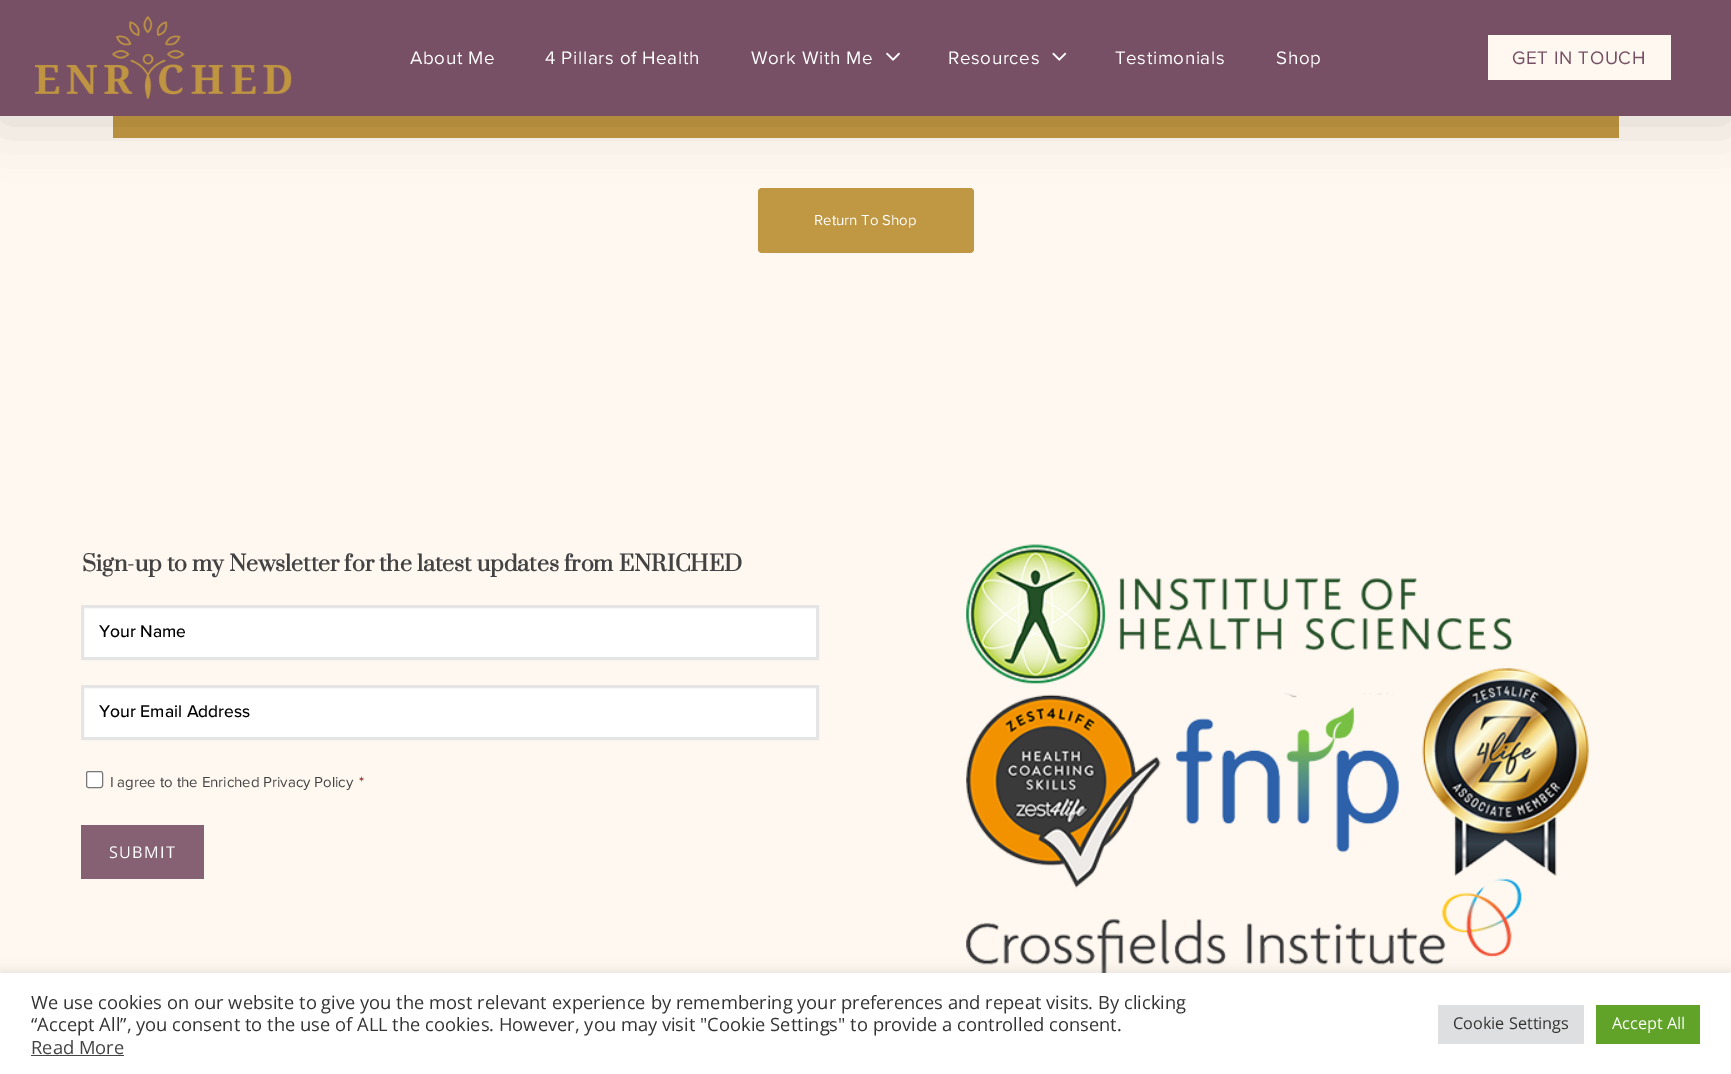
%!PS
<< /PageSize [1731 1074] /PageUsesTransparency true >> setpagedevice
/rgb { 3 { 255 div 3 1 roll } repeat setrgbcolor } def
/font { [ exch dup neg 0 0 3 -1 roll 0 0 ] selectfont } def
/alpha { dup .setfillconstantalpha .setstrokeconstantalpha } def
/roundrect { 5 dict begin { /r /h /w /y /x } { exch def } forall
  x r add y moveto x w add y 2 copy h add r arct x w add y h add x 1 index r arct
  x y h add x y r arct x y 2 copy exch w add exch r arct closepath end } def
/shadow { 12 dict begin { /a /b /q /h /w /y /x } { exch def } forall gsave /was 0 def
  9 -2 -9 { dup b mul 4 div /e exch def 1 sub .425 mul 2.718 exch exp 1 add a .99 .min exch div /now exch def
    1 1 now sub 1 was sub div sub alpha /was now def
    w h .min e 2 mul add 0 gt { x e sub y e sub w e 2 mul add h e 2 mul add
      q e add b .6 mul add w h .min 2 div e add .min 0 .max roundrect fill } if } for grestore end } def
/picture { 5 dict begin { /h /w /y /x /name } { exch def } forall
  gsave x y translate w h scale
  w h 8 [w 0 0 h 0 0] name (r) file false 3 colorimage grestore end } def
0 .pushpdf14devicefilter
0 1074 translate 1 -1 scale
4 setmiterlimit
255 248 240 rgb
0 0 1731 1074 rectfill
192 151 67 rgb
113 116 1506 22 rectfill
758 188 216 65 4 roundrect fill
0 0 0 rgb
0 4 1731 116 0 28 0.15 shadow
119 80 101 rgb
0 0 1731 116 rectfill
(img/1.rgb) 35 16 257 83 picture
(img/2.rgb) 886 52 14 9 picture
(img/3.rgb) 1052 52 15 9 picture
254 248 240 rgb
1488 35 183 45 rectfill
255 255 255 rgb
82.5 606.5 moveto 817.5 606.5 lineto 817.5 658.5 lineto 82.5 658.5 lineto closepath gsave fill grestore
229 229 229 rgb
3 setlinewidth
stroke
255 255 255 rgb
82.5 686.5 moveto 817.5 686.5 lineto 817.5 738.5 lineto 82.5 738.5 lineto closepath gsave fill grestore
229 229 229 rgb
stroke
255 255 255 rgb
86.5 771.5 16 16 2 roundrect gsave fill grestore
118 118 118 rgb
1 setlinewidth
stroke
133 97 115 rgb
81 825 123 54 rectfill
(img/4.rgb) 966 544 623 429 picture
172 171 171 rgb
0 971 1731 103 0 6 0.3 shadow
[
  [0 973 1731 101 255 255 255]
  [31 1055 93 1 68 68 68]
  [1438 1005 146 39 222 223 224]
  [1596 1005 104 39 97 162 41]
] { aload pop rgb rectfill } forall
/ProximaNova-Regular 18.75 font
255 255 255 rgb
410 64 moveto 0.6 0 (About Me) ashow
545 64 moveto 0.6 0 (4 Pillars of Health) ashow
751 64 moveto 0.6 0 (Work With Me) ashow
948 64 moveto 0.6 0 (Resources) ashow
1115 64 moveto 0.6 0 (Testimonials) ashow
1276 64 moveto 0.6 0 (Shop) ashow
119 80 101 rgb
1512 64 moveto 0.6 0 (GET IN TOUCH) ashow
/ProximaNova-Regular 15 font
255 255 255 rgb
814 225 moveto (Return To Shop) show
/Prata-Bold 21.25 font
67 67 67 rgb
82 571 moveto (Sign-up to my Newsletter for the latest updates from ENRICHED) show
/ProximaNova-Medium 17.5 font
0 0 0 rgb
99 637 moveto (Your Name) show
99 717 moveto (Your Email Address) show
/ProximaNova-Regular 15 font
67 67 67 rgb
110 787 moveto (I agree to the Enriched Privacy Policy) show
121 0 0 rgb
359 787 moveto (*) show
/OpenSans-Regular 16.25 font
255 255 255 rgb
109 858 moveto 1.25 0 (SUBMIT) ashow
/OpenSans-Regular 18.33 font
51 51 51 rgb
31 1009 moveto (We use cookies on our website to give you the most relevant experience by remembering your preferences and repeat visits. By clicking) show
31 1031 moveto (“Accept All”, you consent to the use of ALL the cookies. However, you may visit "Cookie Settings" to provide a controlled consent.) show
67 67 67 rgb
31 1054 moveto (Read More) show
/OpenSans-Regular 16.25 font
51 51 51 rgb
1453 1029 moveto (Cookie Settings) show
255 255 255 rgb
1612 1029 moveto (Accept All) show
.poppdf14devicefilter showpage
